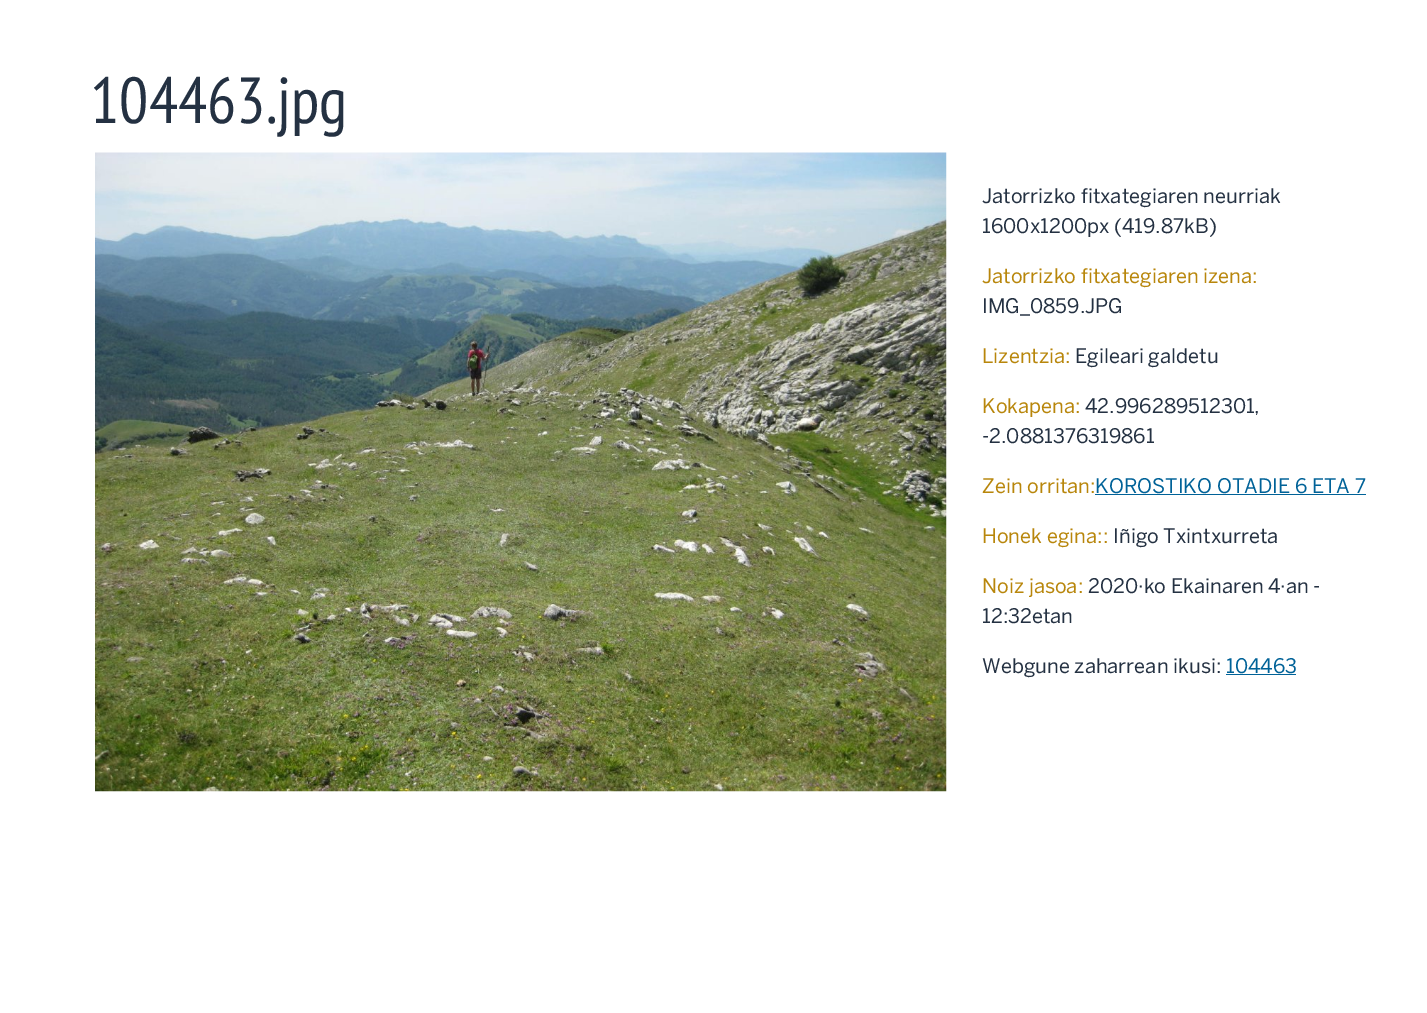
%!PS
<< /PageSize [1427 1013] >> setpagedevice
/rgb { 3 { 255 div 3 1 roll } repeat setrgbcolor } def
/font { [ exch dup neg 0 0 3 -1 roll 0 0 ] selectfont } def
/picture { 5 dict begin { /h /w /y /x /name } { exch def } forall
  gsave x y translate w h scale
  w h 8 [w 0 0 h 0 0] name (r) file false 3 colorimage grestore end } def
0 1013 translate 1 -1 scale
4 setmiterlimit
255 255 255 rgb
0 0 1427 1013 rectfill
(img/1.rgb) 95 152 852 640 picture
0 98 152 rgb
1095 494 271 1 rectfill
1226 674 70 1 rectfill
/PTSansNarrow-Regular 65 font
36 49 66 rgb
90 123 moveto (104463.jpg) show
/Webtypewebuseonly-Regular 20 font
982 203 moveto (Jatorrizko fitxategiaren neurriak) show
982 233 moveto (1600x1200px \(419.87kB\)) show
184 134 11 rgb
982 283 moveto (Jatorrizko fitxategiaren izena:) show
36 49 66 rgb
982 313 moveto (IMG_0859.JPG) show
184 134 11 rgb
982 363 moveto (Lizentzia:) show
36 49 66 rgb
1075 363 moveto (Egileari galdetu) show
184 134 11 rgb
982 413 moveto (Kokapena:) show
36 49 66 rgb
1085 413 moveto (42.996289512301,) show
982 443 moveto (-2.0881376319861) show
184 134 11 rgb
982 493 moveto (Zein orritan:) show
0 98 152 rgb
1095 493 moveto (KOROSTIKO OTADIE 6 ETA 7) show
184 134 11 rgb
982 543 moveto (Honek egina::) show
36 49 66 rgb
1113 543 moveto (Iñigo Txintxurreta) show
184 134 11 rgb
982 593 moveto (Noiz jasoa:) show
36 49 66 rgb
[
  [(2020·ko Ekainaren 4·an -) 1088 593]
  [(12:32etan) 982 623]
  [(Webgune zaharrean ikusi:) 982 673]
] { aload pop moveto show } forall
0 98 152 rgb
1226 673 moveto (104463) show
showpage
